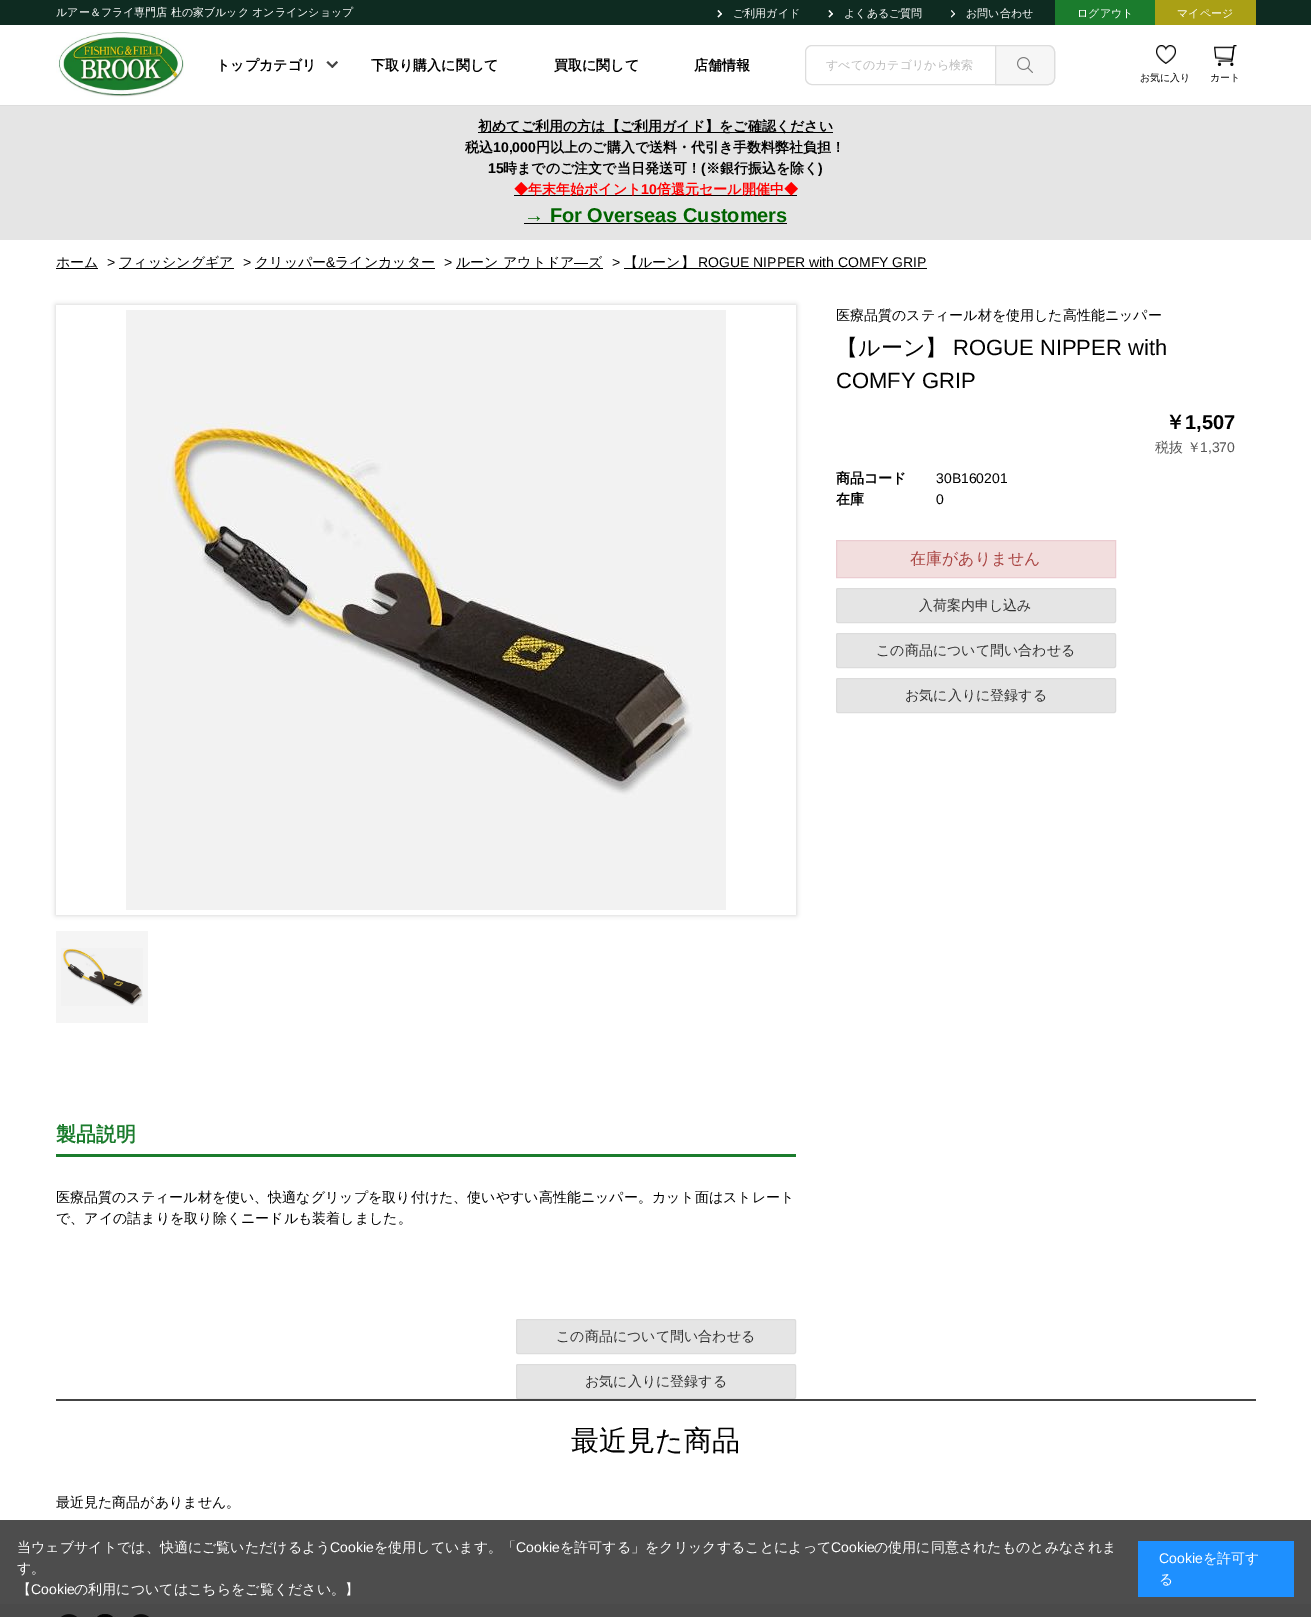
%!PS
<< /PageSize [1311 1617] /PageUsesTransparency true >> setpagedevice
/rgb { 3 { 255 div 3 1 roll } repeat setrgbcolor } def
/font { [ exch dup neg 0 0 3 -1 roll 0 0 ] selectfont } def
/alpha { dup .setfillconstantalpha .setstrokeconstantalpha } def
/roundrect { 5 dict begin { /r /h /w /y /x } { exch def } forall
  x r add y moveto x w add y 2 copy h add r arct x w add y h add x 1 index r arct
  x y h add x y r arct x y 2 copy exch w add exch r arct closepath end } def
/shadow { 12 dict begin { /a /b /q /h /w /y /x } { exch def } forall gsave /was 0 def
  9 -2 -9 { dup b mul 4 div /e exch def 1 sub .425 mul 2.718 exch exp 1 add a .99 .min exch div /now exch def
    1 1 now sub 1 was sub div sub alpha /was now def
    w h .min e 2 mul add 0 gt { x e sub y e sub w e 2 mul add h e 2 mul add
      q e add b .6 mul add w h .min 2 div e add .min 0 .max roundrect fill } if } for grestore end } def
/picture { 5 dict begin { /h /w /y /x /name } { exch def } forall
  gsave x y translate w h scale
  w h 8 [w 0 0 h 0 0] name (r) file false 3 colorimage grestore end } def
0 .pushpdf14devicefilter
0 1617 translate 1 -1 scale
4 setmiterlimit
255 255 255 rgb
0 0 1311 1617 rectfill
[
  [0 1520 1311 84 77 77 77]
  [0 105 1311 1 221 221 221]
  [0 0 1311 25 14 43 33]
] { aload pop rgb rectfill } forall
255 255 255 rgb
718.5 10 moveto 722 14 lineto 721 14.5 lineto 717.5 11 lineto closepath fill
721 13 moveto 722 14 lineto 718.5 17.5 lineto 717.5 16.5 lineto closepath fill
829.5 10 moveto 833 14 lineto 832 14.5 lineto 828.5 11 lineto closepath fill
832 13 moveto 833 14 lineto 829.5 17.5 lineto 828.5 16.5 lineto closepath fill
951.5 10 moveto 955 14 lineto 954.5 14.5 lineto 951 11 lineto closepath fill
954.5 13 moveto 955 14 lineto 951.5 17.5 lineto 951 16.5 lineto closepath fill
27 124 45 rgb
1055 0 100 25 rectfill
170 160 21 rgb
1155 0 101 25 rectfill
(img/1.rgb) 56 32 128 65 picture
68 68 68 rgb
336.5 61 moveto 338 62.5 lineto 332.5 68 lineto 331 66.5 lineto closepath fill
328 61 moveto 333.5 66.5 lineto 332.5 68 lineto 326.5 62.5 lineto closepath fill
221 221 221 rgb
805.5 45.5 249 39 6.5 roundrect stroke
246 246 246 rgb
995 45 moveto 1048 45 lineto 1052 45 1055 48 1055 52 curveto 1055 78 lineto 1055 82 1052 85 1048 85 curveto 995 85 lineto closepath fill
(img/2.rgb) 1017 57 16 16 picture
221 221 221 rgb
995.5 45.5 moveto 1048 45.5 lineto 1051.5 45.5 1054.5 48.5 1054.5 52 curveto 1054.5 78 lineto 1054.5 81.5 1051.5 84.5 1048 84.5 curveto 995.5 84.5 lineto closepath stroke
(img/3.rgb) 1156 45 20 19 picture
(img/4.rgb) 1214 45 23 21 picture
[
  [0 106 1311 134 229 229 229]
  [478 132 355 1 0 0 0]
  [514 195 283 1 0 0 0]
  [524 223 263 1 0 0 0]
  [56 268 42 1 0 0 0]
  [119 268 115 1 0 0 0]
  [255 268 180 1 0 0 0]
  [456 268 147 1 0 0 0]
  [624 268 303 1 0 0 0]
] { aload pop rgb rectfill } forall
242 222 222 rgb
836.5 540.5 moveto 1115.5 540.5 lineto 1115.5 577.5 lineto 836.5 577.5 lineto closepath gsave fill grestore
235 204 209 rgb
stroke
229 229 229 rgb
836.5 588.5 279 34 1.5 roundrect gsave fill grestore
220 220 220 rgb
stroke
229 229 229 rgb
836.5 633.5 279 34 1.5 roundrect gsave fill grestore
220 220 220 rgb
stroke
229 229 229 rgb
836.5 678.5 279 34 1.5 roundrect gsave fill grestore
220 220 220 rgb
stroke
gsave
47 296 moveto 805 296 lineto 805 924 lineto 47 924 lineto closepath 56 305 moveto 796 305 lineto 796 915 lineto 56 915 lineto closepath eoclip newpath
204 204 204 rgb
56 305 740 610 0 2.5 1 shadow
grestore
(img/5.rgb) 126 310 600 600 picture
245 245 245 rgb
56 931 92 92 rectfill
(img/6.rgb) 61 948 82 58 picture
27 124 45 rgb
56 1154 740 3 rectfill
229 229 229 rgb
516.5 1319.5 279 34 1.5 roundrect gsave fill grestore
220 220 220 rgb
stroke
229 229 229 rgb
516.5 1364.5 279 34 1.5 roundrect gsave fill grestore
220 220 220 rgb
stroke
68 68 68 rgb
56 1399 1200 2 rectfill
74 74 74 rgb
0 1604 1311 13 rectfill
(img/7.rgb) 61 1614 16 3 picture
(img/8.rgb) 92 1614 26 3 picture
(img/7.rgb) 133 1614 16 3 picture
30 144 255 rgb
1138 1541 156 56 rectfill
/WenQuanYiZenHei-Medium 11 font
255 255 255 rgb
[
  [(ルアー＆フライ専門店 杜の家ブルック オンラインショップ) 56 16]
  [(ご利用ガイド) 733 17]
  [(よくあるご質問) 844 17]
  [(お問い合わせ) 966 17]
  [(ログアウト) 1077 17]
  [(マイページ) 1177 17]
] { aload pop moveto show } forall
/WenQuanYiZenHei-Bold 14 font
0 0 0 rgb
[
  [(トップカテゴリ) 216 70]
  [(下取り購入に関して) 371 70]
  [(買取に関して) 554 70]
  [(店舗情報) 694 70]
] { aload pop moveto show } forall
/WenQuanYiZenHei-Medium 12 font
187 187 187 rgb
826 69 moveto (すべてのカテゴリから検索) show
/WenQuanYiZenHei-Medium 10 font
0 0 0 rgb
1140 81 moveto (お気に入り) show
1210 81 moveto (カート) show
/WenQuanYiZenHei-Bold 14 font
478 131 moveto (初めてご利用の方は【ご利用ガイド】をご確認ください) show
465 152 moveto (税込) show
/LiberationSans-Bold 14 font
493 152 moveto (10,000) show
/WenQuanYiZenHei-Bold 14 font
536 152 moveto (円以上のご購入で送料・代引き手数料弊社負担！) show
/LiberationSans-Bold 14 font
488 173 moveto (15) show
/WenQuanYiZenHei-Bold 14 font
503 173 moveto (時までのご注文で当日発送可！) show
/LiberationSans-Bold 14 font
701 173 moveto (\() show
/WenQuanYiZenHei-Bold 14 font
706 173 moveto (※銀行振込を除く) show
/LiberationSans-Bold 14 font
818 173 moveto (\)) show
/WenQuanYiZenHei-Bold 14 font
255 0 0 rgb
514 194 moveto (◆年末年始ポイント) show
/LiberationSans-Bold 14 font
641 194 moveto (10) show
/WenQuanYiZenHei-Bold 14 font
657 194 moveto (倍還元セール開催中◆) show
/LiberationSans-Bold 20 font
0 100 0 rgb
524 222 moveto (→ For Overseas Customers) show
/WenQuanYiZenHei-Medium 14 font
0 0 0 rgb
56 267 moveto (ホーム) show
/LiberationSans-Regular 14 font
107 267 moveto (>) show
/WenQuanYiZenHei-Medium 14 font
119 267 moveto (フィッシングギア) show
/LiberationSans-Regular 14 font
243 267 moveto (>) show
/WenQuanYiZenHei-Medium 14 font
255 267 moveto (クリッパー) show
/LiberationSans-Regular 14 font
326 267 moveto (&) show
/WenQuanYiZenHei-Medium 14 font
335 267 moveto (ラインカッター) show
/LiberationSans-Regular 14 font
444 267 moveto (>) show
/WenQuanYiZenHei-Medium 14 font
456 267 moveto (ルーン アウトドア) show
/LiberationSans-Regular 14 font
574 267 moveto (―) show
/WenQuanYiZenHei-Medium 14 font
588 267 moveto (ズ) show
/LiberationSans-Regular 14 font
612 267 moveto (>) show
/WenQuanYiZenHei-Medium 14 font
624 267 moveto (【ルーン】) show
/LiberationSans-Regular 14 font
698 267 moveto (ROGUE NIPPER with COMFY GRIP) show
/WenQuanYiZenHei-Medium 14 font
836 320 moveto (医療品質のスティール材を使用した高性能ニッパー) show
/WenQuanYiZenHei-Medium 22 font
836 355 moveto (【ルーン】) show
/LiberationSans-Regular 22 font
953 355 moveto (ROGUE NIPPER with) show
836 388 moveto (COMFY GRIP) show
/WenQuanYiZenHei-Bold 20 font
1165 429 moveto (￥) show
/LiberationSans-Bold 20 font
1185 429 moveto (1,507) show
/WenQuanYiZenHei-Medium 14 font
85 85 85 rgb
1155 452 moveto (税抜 ￥) show
/LiberationSans-Regular 14 font
1200 452 moveto (1,370) show
/WenQuanYiZenHei-Bold 14 font
0 0 0 rgb
836 483 moveto (商品コード) show
/LiberationSans-Regular 14 font
936 483 moveto (30B160201) show
/WenQuanYiZenHei-Bold 14 font
836 504 moveto (在庫) show
/LiberationSans-Regular 14 font
936 504 moveto (0) show
/WenQuanYiZenHei-Medium 16 font
169 68 66 rgb
910 564 moveto (在庫がありません) show
/WenQuanYiZenHei-Medium 14 font
51 51 51 rgb
[
  [(入荷案内申し込み) 919 610]
  [(この商品について問い合わせる) 876 655]
  [(お気に入りに登録する) 905 700]
] { aload pop moveto show } forall
/WenQuanYiZenHei-Bold 20 font
27 124 45 rgb
56 1141 moveto (製品説明) show
/WenQuanYiZenHei-Medium 14 font
0 0 0 rgb
56 1202 moveto (医療品質のスティール材を使い、快適なグリップを取り付けた、使いやすい高性能ニッパー。カット面はストレート) show
56 1223 moveto (で、アイの詰まりを取り除くニードルも装着しました。) show
51 51 51 rgb
556 1341 moveto (この商品について問い合わせる) show
585 1386 moveto (お気に入りに登録する) show
/WenQuanYiZenHei-Medium 28 font
0 0 0 rgb
571 1450 moveto (最近見た商品) show
/WenQuanYiZenHei-Medium 14 font
56 1507 moveto (最近見た商品がありません。) show
255 255 255 rgb
17 1552 moveto (当ウェブサイトでは、快適にご覧いただけるよう) show
/LiberationSans-Regular 14 font
330 1552 moveto (Cookie) show
/WenQuanYiZenHei-Medium 14 font
374 1552 moveto (を使用しています。「) show
/LiberationSans-Regular 14 font
516 1552 moveto (Cookie) show
/WenQuanYiZenHei-Medium 14 font
560 1552 moveto (を許可する」をクリックすることによって) show
/LiberationSans-Regular 14 font
831 1552 moveto (Cookie) show
/WenQuanYiZenHei-Medium 14 font
[
  [(の使用に同意されたものとみなされま) 874 1552]
  [(す。) 17 1573]
  [(【) 17 1594]
] { aload pop moveto show } forall
/LiberationSans-Regular 14 font
31 1594 moveto (Cookie) show
/WenQuanYiZenHei-Medium 14 font
74 1594 moveto (の利用についてはこちらをご覧ください。】) show
/LiberationSans-Regular 14 font
1159 1563 moveto (Cookie) show
/WenQuanYiZenHei-Medium 14 font
1203 1563 moveto (を許可す) show
1159 1584 moveto (る) show
.poppdf14devicefilter showpage
